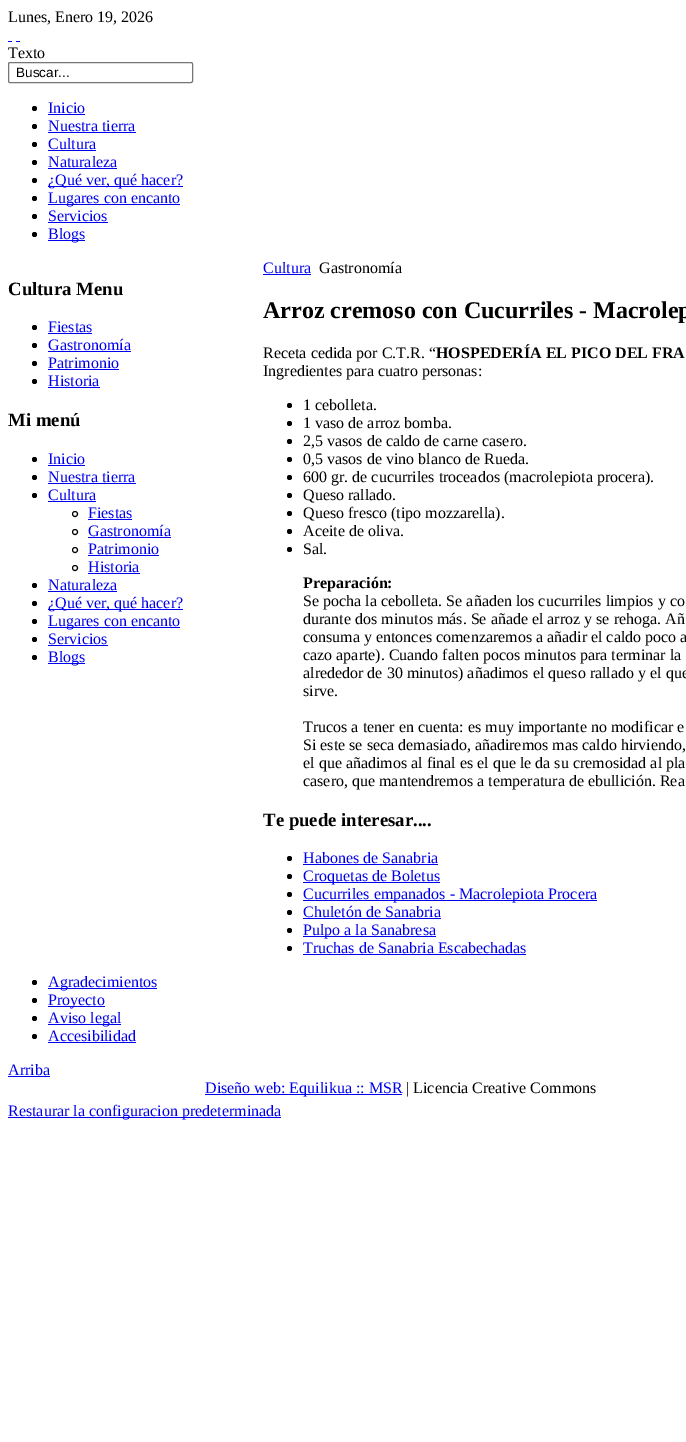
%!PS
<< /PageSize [686 1442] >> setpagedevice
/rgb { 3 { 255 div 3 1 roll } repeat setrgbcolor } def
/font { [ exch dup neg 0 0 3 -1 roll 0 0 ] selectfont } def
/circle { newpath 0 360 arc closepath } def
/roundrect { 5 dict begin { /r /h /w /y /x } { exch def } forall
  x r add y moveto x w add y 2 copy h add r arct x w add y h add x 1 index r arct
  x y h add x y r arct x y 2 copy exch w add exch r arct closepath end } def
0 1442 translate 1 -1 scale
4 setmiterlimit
255 255 255 rgb
0 0 686 1442 rectfill
0 0 238 rgb
8 41 4 1 rectfill
16 41 4 1 rectfill
118 118 118 rgb
8.5 62.5 184 20 1.5 roundrect stroke
0 0 0 rgb
34.5 108.5 2.5 circle fill
0 0 238 rgb
48 114 37 1 rectfill
0 0 0 rgb
34.5 126.5 2.5 circle fill
0 0 238 rgb
48 132 88 1 rectfill
0 0 0 rgb
34.5 144.5 2.5 circle fill
0 0 238 rgb
48 150 48 1 rectfill
0 0 0 rgb
34.5 162.5 2.5 circle fill
0 0 238 rgb
48 168 69 1 rectfill
0 0 0 rgb
34.5 180.5 2.5 circle fill
0 0 238 rgb
48 186 135 1 rectfill
0 0 0 rgb
34.5 198.5 2.5 circle fill
0 0 238 rgb
48 204 132 1 rectfill
0 0 0 rgb
34.5 216.5 2.5 circle fill
0 0 238 rgb
48 222 60 1 rectfill
0 0 0 rgb
34.5 234.5 2.5 circle fill
0 0 238 rgb
48 240 37 1 rectfill
0 0 0 rgb
34.5 327.5 2.5 circle fill
0 0 238 rgb
48 333 44 1 rectfill
0 0 0 rgb
34.5 345.5 2.5 circle fill
0 0 238 rgb
48 351 83 1 rectfill
0 0 0 rgb
34.5 363.5 2.5 circle fill
0 0 238 rgb
48 369 71 1 rectfill
0 0 0 rgb
34.5 381.5 2.5 circle fill
0 0 238 rgb
48 387 52 1 rectfill
0 0 0 rgb
34.5 459.5 2.5 circle fill
0 0 238 rgb
48 465 37 1 rectfill
0 0 0 rgb
34.5 477.5 2.5 circle fill
0 0 238 rgb
48 483 88 1 rectfill
0 0 0 rgb
34.5 495.5 2.5 circle fill
0 0 238 rgb
48 501 48 1 rectfill
0 0 0 rgb
75 514 2.5 circle stroke
0 0 238 rgb
88 519 44 1 rectfill
0 0 0 rgb
75 532 2.5 circle stroke
0 0 238 rgb
88 537 83 1 rectfill
0 0 0 rgb
75 550 2.5 circle stroke
0 0 238 rgb
88 555 71 1 rectfill
0 0 0 rgb
75 568 2.5 circle stroke
0 0 238 rgb
88 573 52 1 rectfill
0 0 0 rgb
34.5 585.5 2.5 circle fill
0 0 238 rgb
48 591 69 1 rectfill
0 0 0 rgb
34.5 603.5 2.5 circle fill
0 0 238 rgb
48 609 135 1 rectfill
0 0 0 rgb
34.5 621.5 2.5 circle fill
0 0 238 rgb
48 627 132 1 rectfill
0 0 0 rgb
34.5 639.5 2.5 circle fill
0 0 238 rgb
48 645 60 1 rectfill
0 0 0 rgb
34.5 657.5 2.5 circle fill
0 0 238 rgb
48 663 37 1 rectfill
263 274 48 1 rectfill
0 0 0 rgb
289.5 405.5 2.5 circle fill
289.5 423.5 2.5 circle fill
289.5 441.5 2.5 circle fill
289.5 459.5 2.5 circle fill
289.5 477.5 2.5 circle fill
289.5 495.5 2.5 circle fill
289.5 513.5 2.5 circle fill
289.5 531.5 2.5 circle fill
289.5 549.5 2.5 circle fill
289.5 858.5 2.5 circle fill
0 0 238 rgb
303 864 135 1 rectfill
0 0 0 rgb
289.5 876.5 2.5 circle fill
0 0 238 rgb
303 882 137 1 rectfill
0 0 0 rgb
289.5 894.5 2.5 circle fill
0 0 238 rgb
303 900 294 1 rectfill
0 0 0 rgb
289.5 912.5 2.5 circle fill
0 0 238 rgb
303 918 138 1 rectfill
0 0 0 rgb
289.5 930.5 2.5 circle fill
0 0 238 rgb
303 936 133 1 rectfill
0 0 0 rgb
289.5 948.5 2.5 circle fill
0 0 238 rgb
303 954 223 1 rectfill
0 0 0 rgb
34.5 982.5 2.5 circle fill
0 0 238 rgb
48 988 109 1 rectfill
0 0 0 rgb
34.5 1000.5 2.5 circle fill
0 0 238 rgb
48 1006 57 1 rectfill
0 0 0 rgb
34.5 1018.5 2.5 circle fill
0 0 238 rgb
48 1024 73 1 rectfill
0 0 0 rgb
34.5 1036.5 2.5 circle fill
[
  [48 1042 88 1 0 0 238]
  [8 1076 42 1 0 0 238]
  [205 1094 197 1 0 0 238]
  [8 1117 273 1 0 0 238]
] { aload pop rgb rectfill } forall
/LiberationSerif-Regular 16 font
0 0 0 rgb
8 22 moveto (Lunes, Enero 19, 2026) show
8 58 moveto (Texto) show
/LiberationSans-Regular 13.5 font
16 77 moveto (Buscar...) show
/LiberationSerif-Regular 16 font
0 0 238 rgb
[
  [(Inicio) 48 113]
  [(Nuestra tierra) 48 131]
  [(Cultura) 48 149]
  [(Naturaleza) 48 167]
  [(¿Qué ver, qué hacer?) 48 185]
  [(Lugares con encanto) 48 203]
  [(Servicios) 48 221]
  [(Blogs) 48 239]
] { aload pop moveto show } forall
/LiberationSerif-Bold 18.75 font
0 0 0 rgb
8 295 moveto (Cultura Menu) show
/LiberationSerif-Regular 16 font
0 0 238 rgb
[
  [(Fiestas) 48 332]
  [(Gastronomía) 48 350]
  [(Patrimonio) 48 368]
  [(Historia) 48 386]
] { aload pop moveto show } forall
/LiberationSerif-Bold 18.75 font
0 0 0 rgb
8 426 moveto (Mi menú) show
/LiberationSerif-Regular 16 font
0 0 238 rgb
[
  [(Inicio) 48 464]
  [(Nuestra tierra) 48 482]
  [(Cultura) 48 500]
  [(Fiestas) 88 518]
  [(Gastronomía) 88 536]
  [(Patrimonio) 88 554]
  [(Historia) 88 572]
  [(Naturaleza) 48 590]
  [(¿Qué ver, qué hacer?) 48 608]
  [(Lugares con encanto) 48 626]
  [(Servicios) 48 644]
  [(Blogs) 48 662]
  [(Cultura) 263 273]
] { aload pop moveto show } forall
0 0 0 rgb
319 273 moveto (Gastronomía) show
/LiberationSerif-Bold 24 font
263 318 moveto (Arroz cremoso con Cucurriles - Macrolep) show
/LiberationSerif-Regular 16 font
263 358 moveto (Receta cedida por C.T.R. “) show
/LiberationSerif-Bold 16 font
436 358 moveto (HOSPEDERÍA EL PICO DEL FRA) show
/LiberationSerif-Regular 16 font
[
  [(Ingredientes para cuatro personas:) 263 376]
  [(1 cebolleta.) 303 410]
  [(1 vaso de arroz bomba.) 303 428]
  [(2,5 vasos de caldo de carne casero.) 303 446]
  [(0,5 vasos de vino blanco de Rueda.) 303 464]
  [(600 gr. de cucurriles troceados \(macrolepiota procera\).) 303 482]
  [(Queso rallado.) 303 500]
  [(Queso fresco \(tipo mozzarella\).) 303 518]
  [(Aceite de oliva.) 303 536]
  [(Sal.) 303 554]
] { aload pop moveto show } forall
/LiberationSerif-Bold 16 font
303 588 moveto (Preparación:) show
/LiberationSerif-Regular 16 font
[
  [(Se pocha la cebolleta. Se añaden los cucurriles limpios y co) 303 606]
  [(durante dos minutos más. Se añade el arroz y se rehoga. Añ) 303 624]
  [(consuma y entonces comenzaremos a añadir el caldo poco a) 303 642]
  [(cazo aparte\). Cuando falten pocos minutos para terminar la) 303 660]
  [(alrededor de 30 minutos\) añadimos el queso rallado y el que) 303 678]
  [(sirve.) 303 696]
  [(Trucos a tener en cuenta: es muy importante no modificar e) 303 732]
  [(Si este se seca demasiado, añadiremos mas caldo hirviendo,) 303 750]
  [(el que añadimos al final es el que le da su cremosidad al pla) 303 768]
  [(casero, que mantendremos a temperatura de ebullición. Rea) 303 786]
] { aload pop moveto show } forall
/LiberationSerif-Bold 18.75 font
263 826 moveto (Te puede interesar....) show
/LiberationSerif-Regular 16 font
0 0 238 rgb
[
  [(Habones de Sanabria) 303 863]
  [(Croquetas de Boletus) 303 881]
  [(Cucurriles empanados - Macrolepiota Procera) 303 899]
  [(Chuletón de Sanabria) 303 917]
  [(Pulpo a la Sanabresa) 303 935]
  [(Truchas de Sanabria Escabechadas) 303 953]
  [(Agradecimientos) 48 987]
  [(Proyecto) 48 1005]
  [(Aviso legal) 48 1023]
  [(Accesibilidad) 48 1041]
  [(Arriba) 8 1075]
  [(Diseño web: Equilikua :: MSR) 205 1093]
] { aload pop moveto show } forall
0 0 0 rgb
406 1093 moveto (| Licencia Creative Commons) show
0 0 238 rgb
8 1116 moveto (Restaurar la configuracion predeterminada) show
showpage
